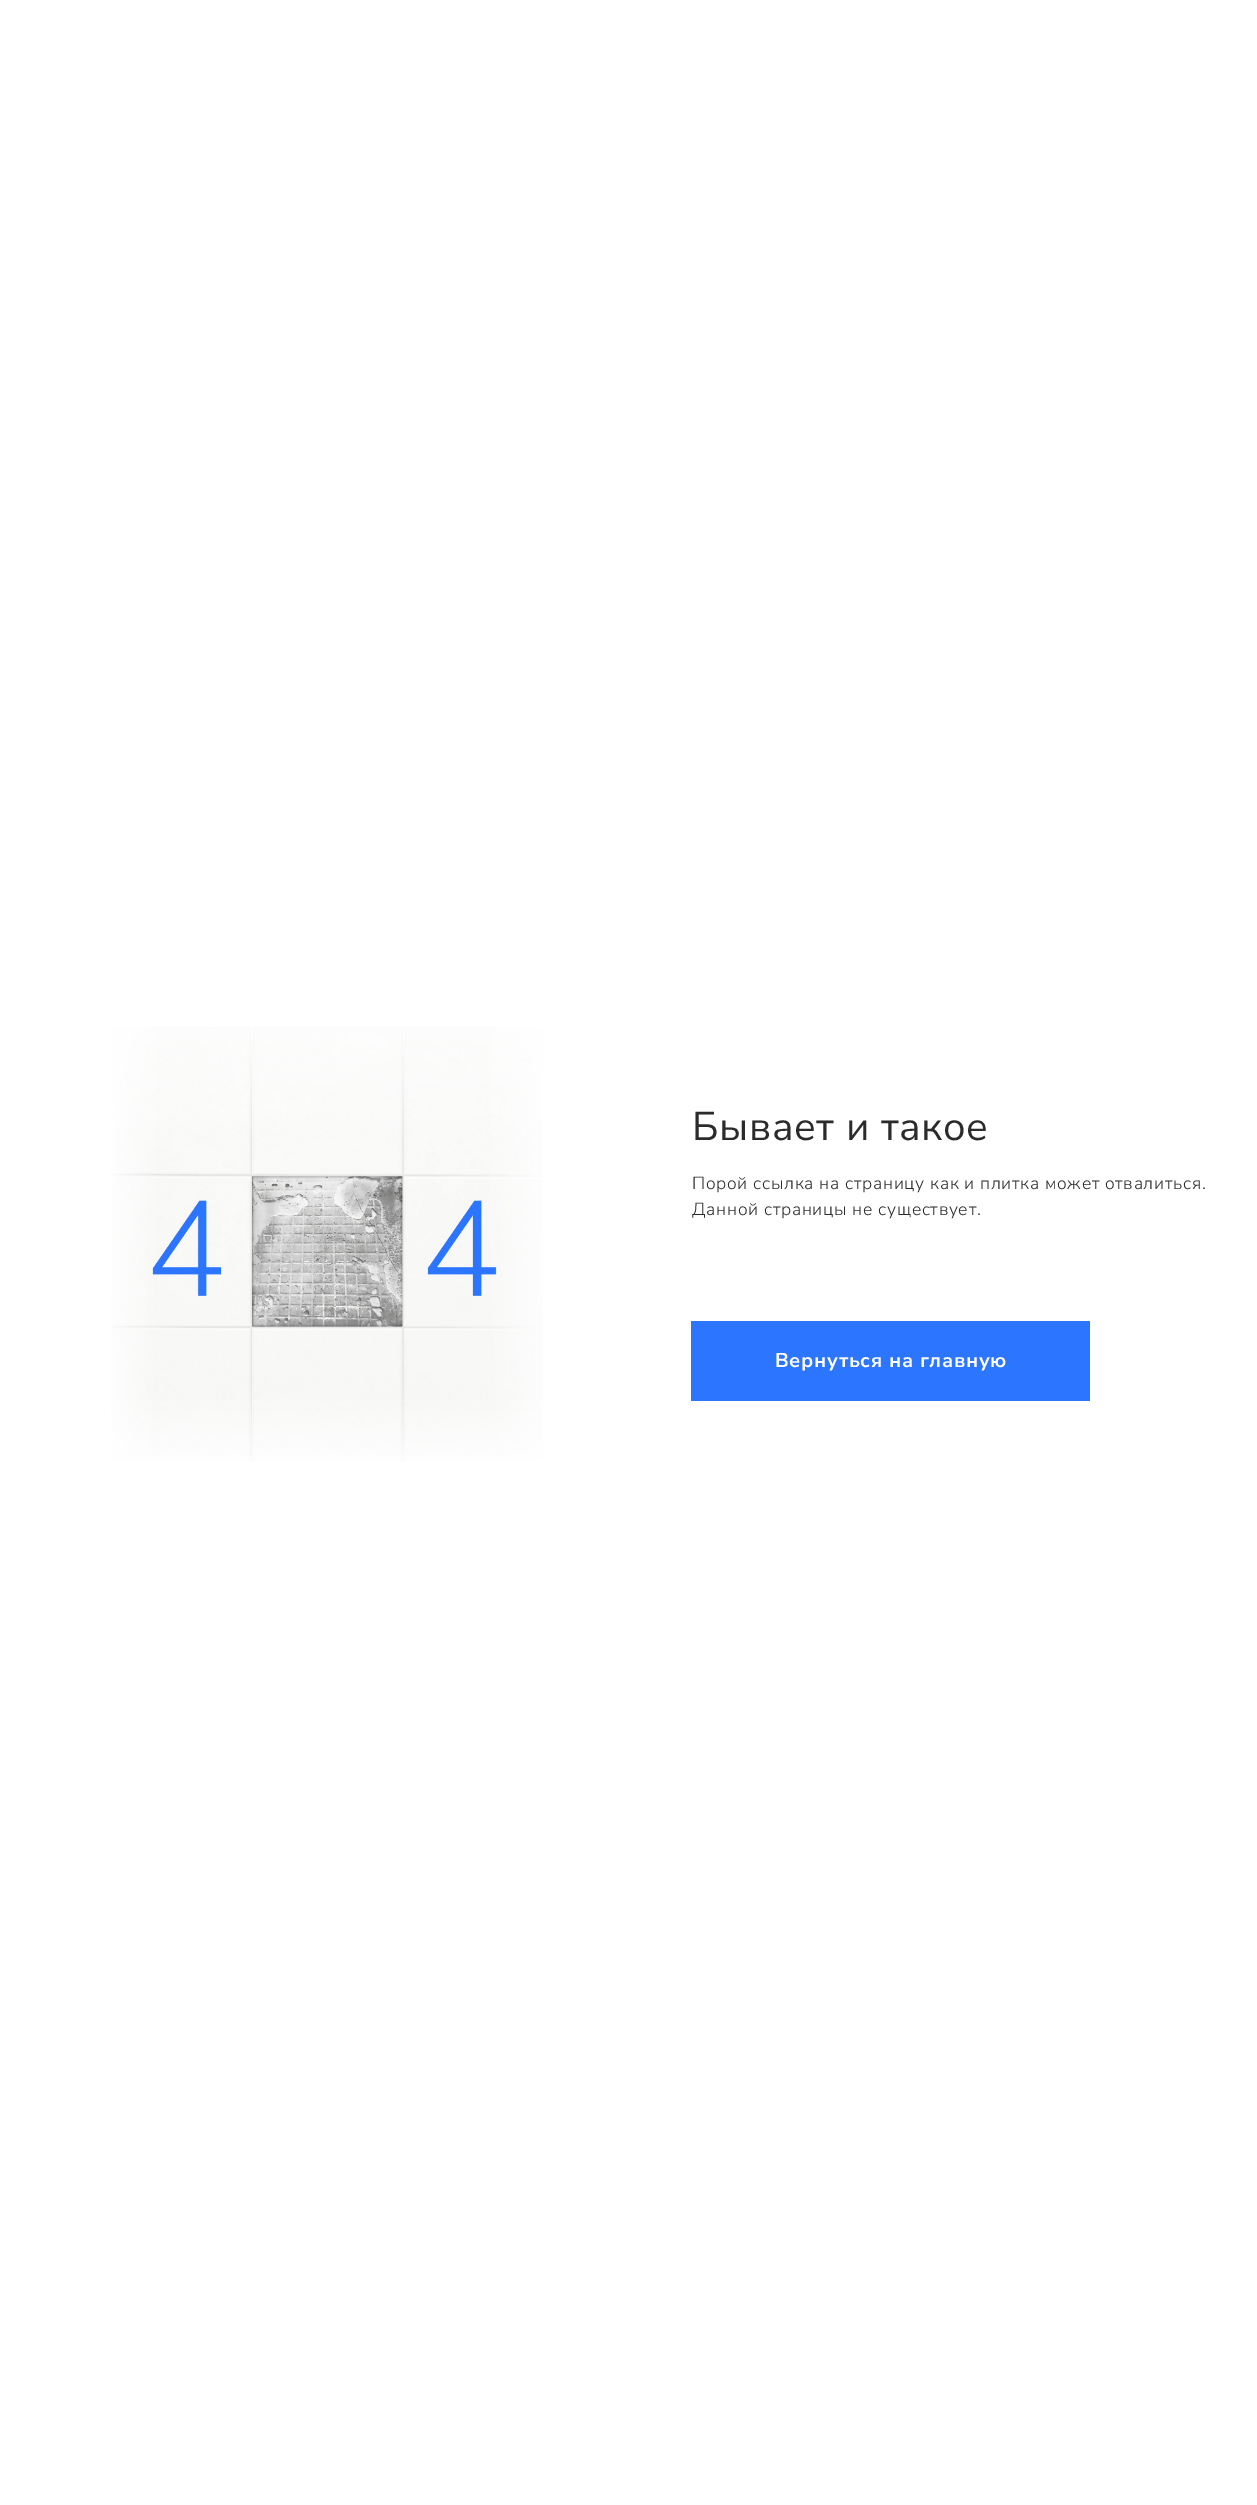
%!PS
<< /PageSize [1257 2505] >> setpagedevice
/rgb { 3 { 255 div 3 1 roll } repeat setrgbcolor } def
/font { [ exch dup neg 0 0 3 -1 roll 0 0 ] selectfont } def
/picture { 5 dict begin { /h /w /y /x /name } { exch def } forall
  gsave x y translate w h scale
  w h 8 [w 0 0 h 0 0] name (r) file false 3 colorimage grestore end } def
0 2505 translate 1 -1 scale
4 setmiterlimit
255 255 255 rgb
0 0 1257 2505 rectfill
(img/1.rgb) 111 1027 432 434 picture
44 117 255 rgb
691 1321 399 80 rectfill
/NunitoSans-Regular 40 font
43 43 43 rgb
692 1140 moveto 0.68 0 (Бывает и такое) ashow
/NunitoSans-Light 17.5 font
692 1189 moveto 0.68 0 (Порой ссылка на страницу как и плитка может отвалиться.) ashow
692 1215 moveto 0.68 0 (Данной страницы не существует.) ashow
/NunitoSans-Bold 20 font
255 255 255 rgb
775 1367 moveto 0.68 0 (Вернуться на главную) ashow
showpage
